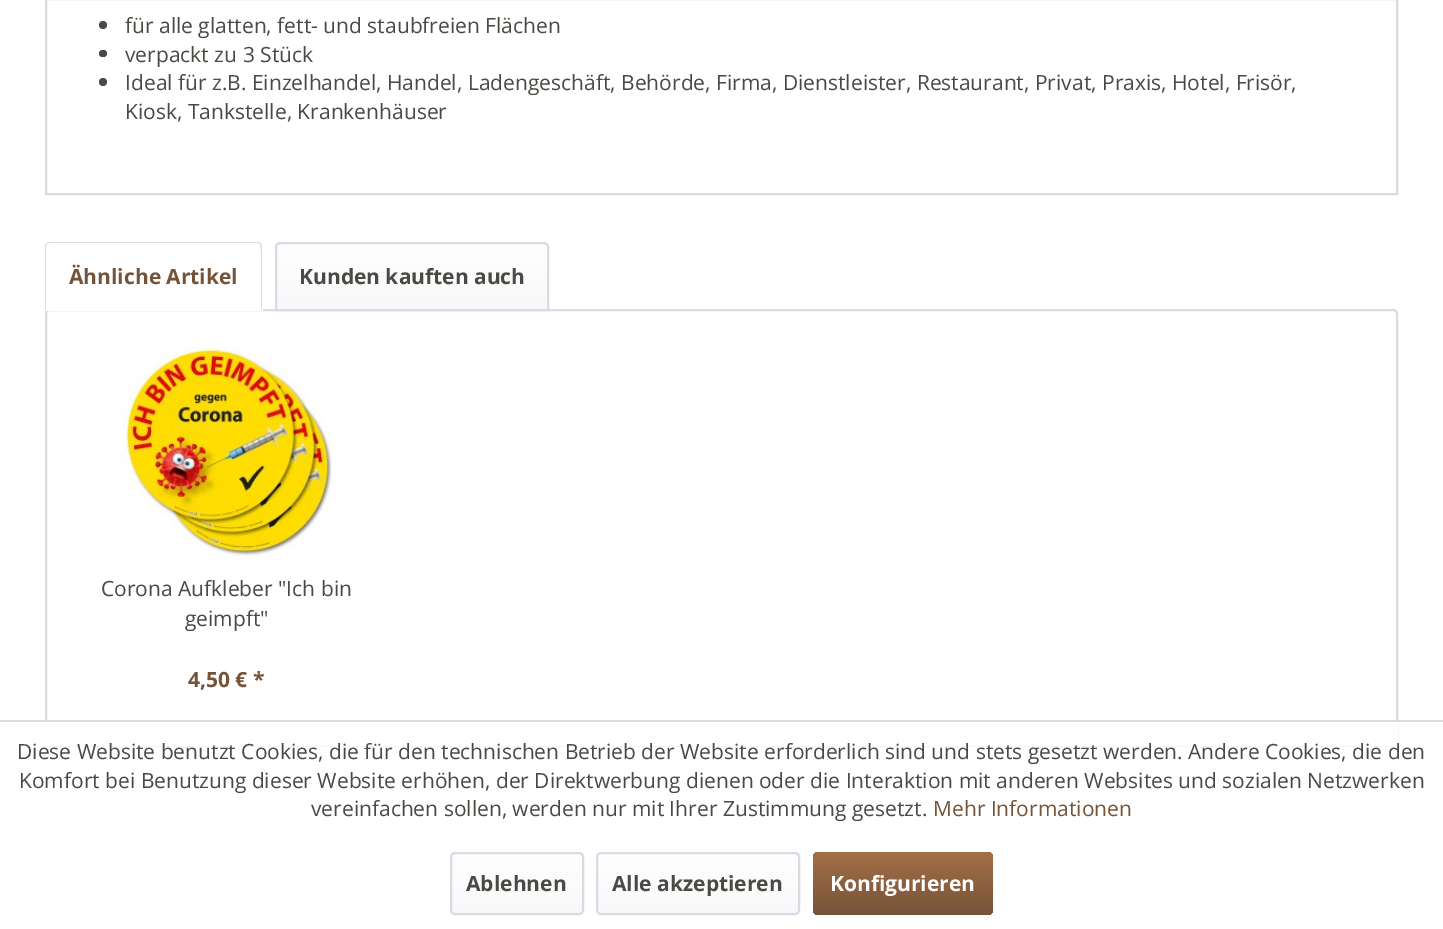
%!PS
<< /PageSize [1443 929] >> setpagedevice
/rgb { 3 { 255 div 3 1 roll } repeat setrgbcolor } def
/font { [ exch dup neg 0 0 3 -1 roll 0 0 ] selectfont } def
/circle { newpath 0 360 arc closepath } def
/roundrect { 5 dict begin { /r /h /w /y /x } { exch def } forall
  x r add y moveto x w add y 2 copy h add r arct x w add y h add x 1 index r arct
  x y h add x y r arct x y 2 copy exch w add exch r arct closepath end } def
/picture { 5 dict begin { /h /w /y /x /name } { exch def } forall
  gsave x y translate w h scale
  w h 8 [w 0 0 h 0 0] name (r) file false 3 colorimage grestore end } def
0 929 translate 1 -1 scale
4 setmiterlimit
255 255 255 rgb
0 0 1443 929 rectfill
218 218 229 rgb
2 setlinewidth
46 -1 1351 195 rectstroke
75 73 68 rgb
103 25 4 circle fill
99 50 8 7 3.5 roundrect fill
103 82 4 circle fill
218 218 229 rgb
46 310 1351 435 4 roundrect stroke
255 255 255 rgb
50 242 moveto 258 242 lineto 261 242 263 244 263 247 curveto 263 311 lineto 45 311 lineto 45 247 lineto 45 244 47 242 50 242 curveto closepath fill
218 218 229 rgb
50 242 moveto 47 243 lineto 47 244 lineto 50 243 lineto 258 243 lineto 260 244 lineto 261 243 lineto 258 242 lineto closepath fill
262 310 moveto 262 246 lineto 261 243 lineto 260 244 lineto 262 245 261 302 261 309 curveto closepath fill
255 255 255 rgb
262 310 moveto 261 309 lineto 46 309 lineto 46 310 lineto closepath fill
218 218 229 rgb
45 246 moveto 45 310 lineto 46 310 lineto 46 309 lineto 46 246 lineto 47 244 lineto 47 243 lineto 46 244 45 245 45 246 curveto closepath fill
gsave 279 243 moveto 545 243 lineto 546.5 243 548 244.5 548 246 curveto 548 309 lineto 276 309 lineto 276 246 lineto 276 244.5 277.5 243 279 243 curveto closepath clip newpath
<< /ShadingType 2 /ColorSpace /DeviceRGB /Coords [412 243 412 309] /Extend [true true] /Function << /FunctionType 2 /Domain [0 1] /C0 [1 1 1] /C1 [0.973 0.973 0.98] /N 1 >> >> shfill grestore
280 243 moveto 544 243 lineto 546 243 548 245 548 247 curveto 548 310 lineto 276 310 lineto 276 247 lineto 276 245 278 243 280 243 curveto closepath stroke
(img/1.rgb) 121 347 211 211 picture
255 255 255 rgb
45 722 1353 24 rectfill
218 218 229 rgb
0 720 1443 2 rectfill
gsave 452 854 130 60 3 roundrect clip newpath
<< /ShadingType 2 /ColorSpace /DeviceRGB /Coords [517 854 517 914] /Extend [true true] /Function << /FunctionType 2 /Domain [0 1] /C0 [1 1 1] /C1 [0.973 0.973 0.98] /N 1 >> >> shfill grestore
451 853 132 61 4 roundrect stroke
gsave 597 854 201 60 3 roundrect clip newpath
<< /ShadingType 2 /ColorSpace /DeviceRGB /Coords [698 854 698 914] /Extend [true true] /Function << /FunctionType 2 /Domain [0 1] /C0 [1 1 1] /C1 [0.973 0.973 0.98] /N 1 >> >> shfill grestore
597 853 202 61 4 roundrect stroke
gsave 813 852 180 63 5 roundrect clip newpath
<< /ShadingType 2 /ColorSpace /DeviceRGB /Coords [903 852 903 915] /Extend [true true] /Function << /FunctionType 2 /Domain [0 1] /C0 [0.643 0.435 0.278] /C1 [0.459 0.325 0.224] /N 1 >> >> shfill grestore
/OpenSans-Regular 21 font
75 73 68 rgb
[
  [(für alle glatten, fett- und staubfreien Flächen) 125 33]
  [(verpackt zu 3 Stück) 125 62]
  [(Ideal für z.B. Einzelhandel, Handel, Ladengeschäft, Behörde, Firma, Dienstleister, Restaurant, Privat, Praxis, Hotel, Frisör,) 125 90]
  [(Kiosk, Tankstelle, Krankenhäuser) 125 119]
] { aload pop moveto show } forall
/OpenSans-Bold 21 font
117 83 57 rgb
69 284 moveto (Ähnliche Artikel) show
75 73 68 rgb
299 284 moveto (Kunden kauften auch) show
/OpenSans-Regular 21 font
101 596 moveto (Corona Aufkleber "Ich bin) show
185 626 moveto (geimpft") show
/OpenSans-Bold 21 font
117 83 57 rgb
188 687 moveto (4,50 € *) show
/OpenSans-Regular 21 font
75 73 68 rgb
[
  [(Diese Website benutzt Cookies, die für den technischen Betrieb der Website erforderlich sind und stets gesetzt werden. Andere Cookies, die den) 17 759]
  [(Komfort bei Benutzung dieser Website erhöhen, der Direktwerbung dienen oder die Interaktion mit anderen Websites und sozialen Netzwerken) 19 788]
  [(vereinfachen sollen, werden nur mit Ihrer Zustimmung gesetzt.) 311 816]
] { aload pop moveto show } forall
117 83 57 rgb
933 816 moveto (Mehr Informationen) show
/OpenSans-Bold 21 font
75 73 68 rgb
466 891 moveto (Ablehnen) show
612 891 moveto (Alle akzeptieren) show
255 255 255 rgb
830 891 moveto (Konfigurieren) show
showpage
